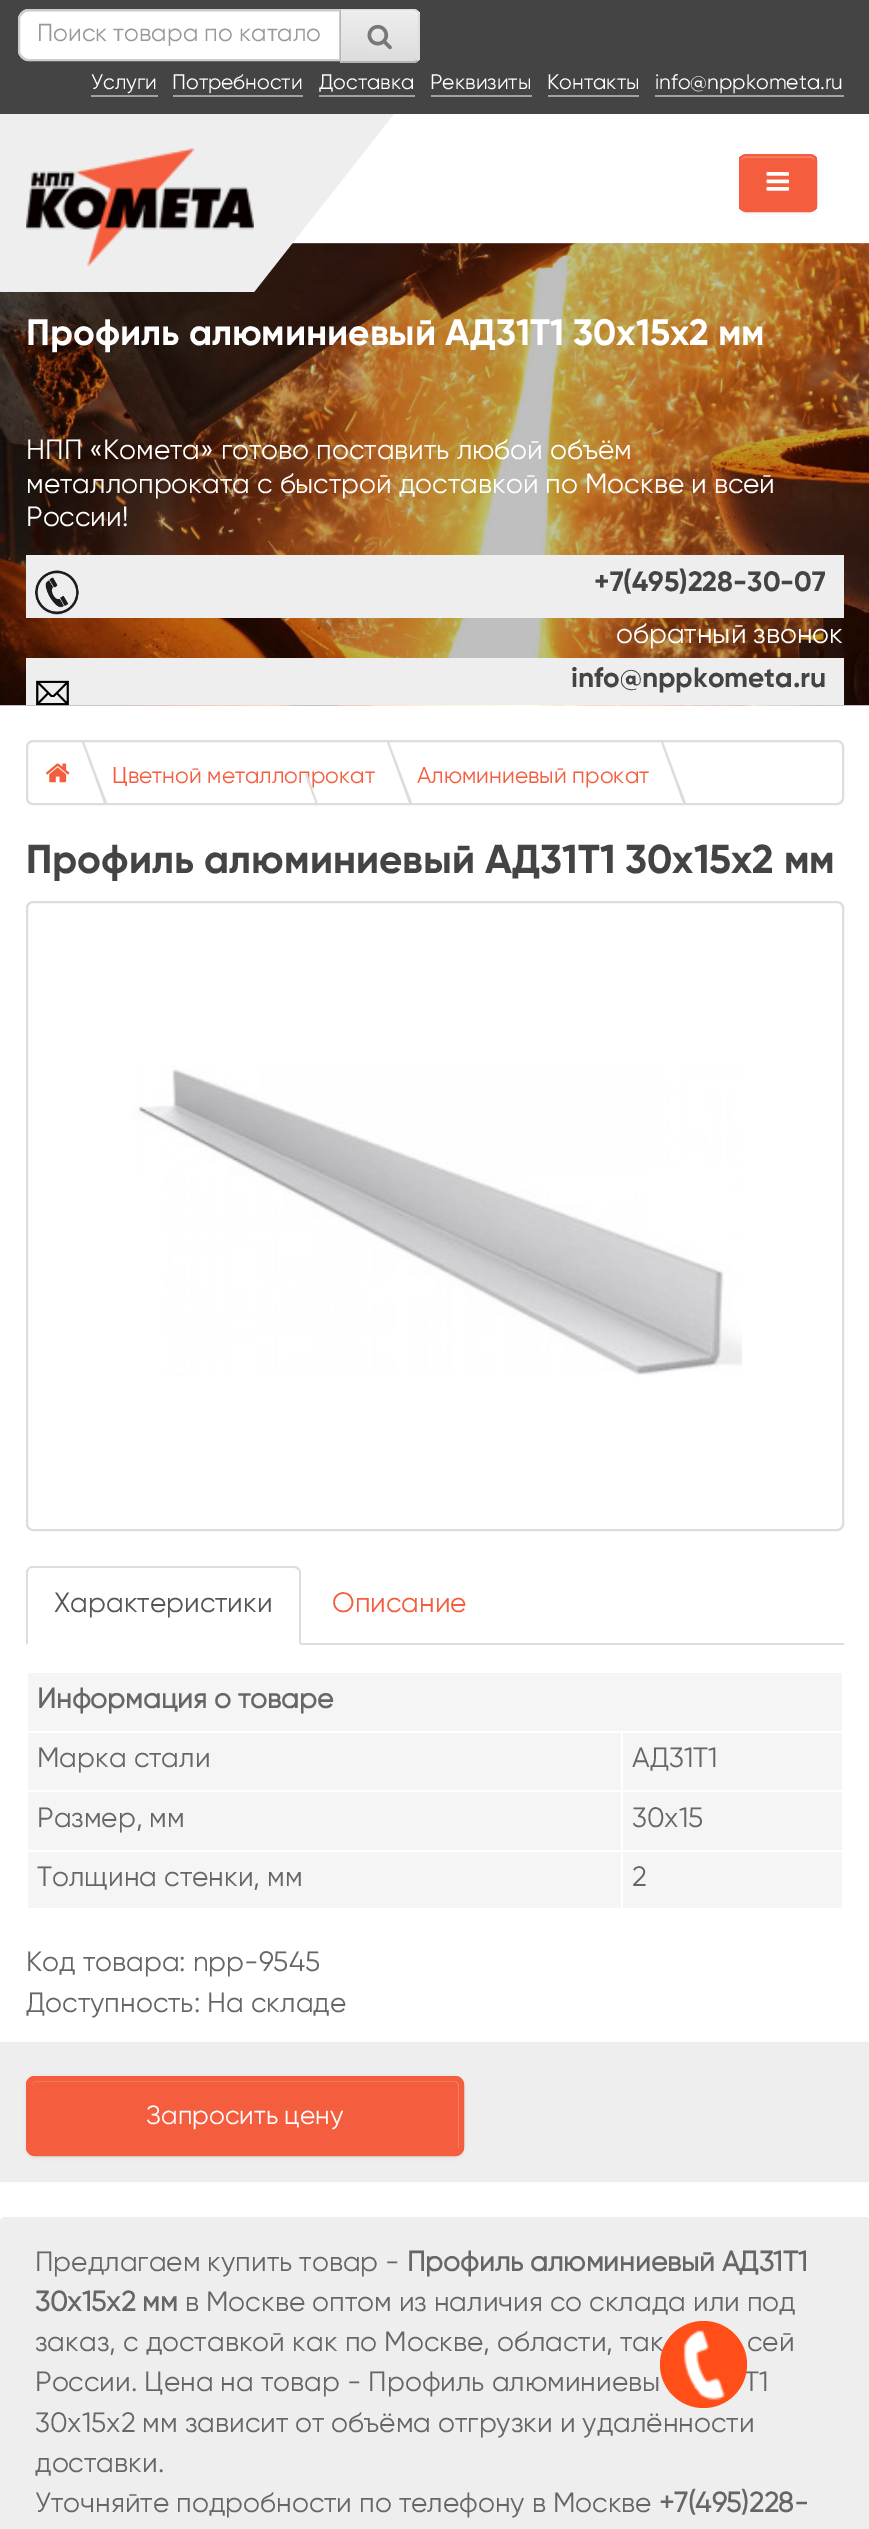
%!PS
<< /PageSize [869 2529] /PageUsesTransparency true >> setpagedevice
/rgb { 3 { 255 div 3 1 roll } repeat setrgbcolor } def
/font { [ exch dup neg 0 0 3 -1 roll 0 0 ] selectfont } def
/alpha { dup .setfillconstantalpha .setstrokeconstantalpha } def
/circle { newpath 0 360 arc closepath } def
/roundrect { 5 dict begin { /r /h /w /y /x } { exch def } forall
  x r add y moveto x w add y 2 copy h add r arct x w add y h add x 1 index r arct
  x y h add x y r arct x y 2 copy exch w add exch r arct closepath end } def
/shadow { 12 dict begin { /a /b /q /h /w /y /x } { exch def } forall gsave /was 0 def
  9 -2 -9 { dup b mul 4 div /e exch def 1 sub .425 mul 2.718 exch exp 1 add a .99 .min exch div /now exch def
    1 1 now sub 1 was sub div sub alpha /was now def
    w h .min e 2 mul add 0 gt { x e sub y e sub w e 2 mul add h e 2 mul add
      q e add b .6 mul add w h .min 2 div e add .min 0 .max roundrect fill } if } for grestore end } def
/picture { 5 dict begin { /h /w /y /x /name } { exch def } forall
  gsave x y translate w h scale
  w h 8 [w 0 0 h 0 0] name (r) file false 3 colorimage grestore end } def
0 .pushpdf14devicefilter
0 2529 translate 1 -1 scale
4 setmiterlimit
255 255 255 rgb
0 0 869 2529 rectfill
68 68 68 rgb
0 0 869 114 rectfill
255 255 255 rgb
29 9 moveto 341 9 lineto 341 61 lineto 29 61 lineto 23 61 18 56 18 50 curveto 18 20 lineto 18 14 23 9 29 9 curveto closepath fill
236 236 236 rgb
28 12 moveto 340 12 lineto 340 11 lineto 26 11 lineto 21 12 19 16 19 21 curveto 19 16 23 12 28 12 curveto closepath fill
204 204 204 rgb
2 setlinewidth
29 10 moveto 340 10 lineto 340 60 lineto 29 60 lineto 23.5 60 19 55.5 19 50 curveto 19 20 lineto 19 14.5 23.5 10 29 10 curveto closepath stroke
231 231 231 rgb
340 9 moveto 413 9 lineto 417 9 420 12 420 16 curveto 420 56 lineto 420 60 417 63 413 63 curveto 340 63 lineto closepath fill
gsave
340 9 moveto 413 9 lineto 417 9 420 12 420 16 curveto 420 56 lineto 420 60 417 63 413 63 curveto 340 63 lineto closepath clip newpath
gsave 341 11 moveto 420 11 lineto 420 61 lineto 341 61 lineto closepath clip newpath
<< /ShadingType 2 /ColorSpace /DeviceRGB /Coords [380 10 380 61] /Extend [true true] /Function << /FunctionType 2 /Domain [0 1] /C0 [0.933 0.933 0.933] /C1 [0.867 0.867 0.867] /N 1 >> >> shfill grestore
grestore
241 241 241 rgb
341 12 moveto 413 12 lineto 416 12 418 15 418 18 curveto 418 16 lineto 418 13 416 11 413 11 curveto 341 11 lineto closepath fill
221 221 221 rgb
340 9 moveto 341 10 lineto 414 10 lineto 417 12 lineto 418 11 lineto 417 10 415 9 413 9 curveto closepath fill
418 11 moveto 419 12 420 14 420 16 curveto 420 56 lineto 420 58 419 60 418 61 curveto 417 60 lineto 418 59 418 58 418 56 curveto 418 16 lineto 418 15 418 13 417 12 curveto closepath fill
179 179 179 rgb
340 63 moveto 413 63 lineto 415 63 417 62 418 61 curveto 417 60 lineto 414 61 lineto 342 61 lineto closepath fill
183 183 183 rgb
340 9 moveto 340 62 lineto 342 61 lineto 341 61 lineto 341 10 lineto closepath fill
(img/1.rgb) 367 24 25 26 picture
[
  [91 95 67 2 162 162 162]
  [173 95 130 2 162 162 162]
  [319 95 96 2 162 162 162]
  [431 95 101 2 162 162 162]
  [548 95 91 2 162 162 162]
  [655 95 189 2 162 162 162]
] { aload pop rgb rectfill } forall
(img/4.rgb) 0 243 869 463 picture
238 238 238 rgb
0 114 254 178 rectfill
(img/2.rgb) 26 148 228 118 picture
254 114 moveto 394 114 lineto 254 292 lineto closepath fill
0 0 0 rgb
739 156 78 58 7 2 0.05 shadow
gsave
739 154 78 58 7 roundrect clip newpath
244 94 63 rgb
739 156 78 54 rectfill
grestore
246 126 101 rgb
746 158 moveto 810 158 lineto 813 158 816 160 816 163 curveto 816 153 808 156 800 156 curveto 756 156 lineto 748 156 740 153 740 163 curveto 740 160 743 158 746 158 curveto closepath fill
244 94 63 rgb
740 155 76 56 6 roundrect stroke
(img/3.rgb) 766 172 23 19 picture
238 238 238 rgb
26 555 818 63 rectfill
(img/5.rgb) 35 570 44 45 picture
26 658 818 47 rectfill
(img/6.rgb) 36 680 33 26 picture
221 221 221 rgb
27 741 816 63 6 roundrect stroke
(img/7.rgb) 46 763 24 20 picture
104 803 moveto 82 742 lineto 84 742 lineto 107 803 lineto closepath fill
409 803 moveto 387 742 lineto 389 742 lineto 412 803 lineto closepath fill
683 803 moveto 661 742 lineto 663 742 lineto 686 803 lineto closepath fill
27 902 816 628 6 roundrect stroke
(img/8.rgb) 131 1066 611 311 picture
301 1643 543 2 rectfill
33 1568 moveto 32 1568 30 1568 29 1569 curveto 28 1568 lineto 31 1566 lineto 296 1566 lineto 299 1568 lineto 298 1570 lineto 297 1569 296 1568 294 1568 curveto closepath fill
301 1645 moveto 301 1573 lineto 301 1571 300 1569 299 1568 curveto 298 1570 lineto 299 1570 299 1572 299 1573 curveto 299 1643 lineto closepath fill
26 1645 moveto 26 1571 lineto 28 1568 lineto 29 1569 lineto 28 1572 lineto 28 1643 lineto closepath fill
[
  [28 1673 814 58 245 245 245]
  [28 1733 593 57 245 245 245]
  [623 1733 219 57 245 245 245]
  [28 1792 593 58 245 245 245]
  [623 1792 219 58 245 245 245]
  [28 1852 593 56 245 245 245]
  [623 1852 219 56 245 245 245]
  [0 2042 869 140 238 238 238]
] { aload pop rgb rectfill } forall
0 0 0 rgb
26 2077 438 81 9 2 0.05 shadow
244 94 63 rgb
26 2076 438 80 9 roundrect fill
246 126 101 rgb
35 2082 moveto 455 2082 lineto 457 2082 458 2084 458 2086 curveto 458 2150 lineto 459 2149 459 2148 459 2147 curveto 459 2085 lineto 459 2083 457 2081 455 2081 curveto 36 2081 lineto 34 2081 32 2083 32 2085 curveto 32 2086 lineto 32 2084 33 2082 35 2082 curveto closepath fill
244 94 63 rgb
5 setlinewidth
28.5 2078.5 433 75 6.5 roundrect stroke
238 238 238 rgb
0 2217 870 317 5 roundrect fill
/Gilroy-Regular 24.5 font
153 153 153 rgb
37 41 moveto (Поиск товара по катало) show
/Gilroy-Regular 21 font
255 255 255 rgb
[
  [(Услуги) 91 89]
  [(Потребности) 172 89]
  [(Доставка) 319 89]
  [(Реквизиты) 430 89]
  [(Контакты) 547 89]
  [(info@nppkometa.ru) 655 89]
] { aload pop moveto show } forall
/Gilroy-Bold 36.75 font
26 345 moveto (Профиль алюминиевый АД31Т1 30х15х2 мм) show
/Gilroy-Regular 28 font
[
  [(НПП «Комета» готово поставить любой объём) 26 459]
  [(металлопроката с быстрой доставкой по Москве и всей) 26 493]
  [(России!) 26 526]
] { aload pop moveto show } forall
/Gilroy-Bold 28 font
68 68 68 rgb
594 591 moveto (+7\(495\)228-30-07) show
/Gilroy-Regular 28 font
255 255 255 rgb
616 643 moveto (обратный звонок) show
/Gilroy-Bold 28 font
68 68 68 rgb
571 687 moveto (info@nppkometa.ru) show
/Gilroy-Regular 22.75 font
244 94 63 rgb
112 783 moveto (Цветной металлопрокат) show
417 783 moveto (Алюминиевый прокат) show
221 221 221 rgb
305 774 moveto 307 773 lineto 317.5 803 lineto 315.5 803 lineto closepath fill
/Gilroy-Bold 40.25 font
68 68 68 rgb
26 873 moveto (Профиль алюминиевый АД31Т1 30х15х2 мм) show
/Gilroy-Regular 28 font
85 85 85 rgb
54 1612 moveto (Характеристики) show
244 94 63 rgb
332 1612 moveto (Описание) show
/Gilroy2-Bold 28 font
102 102 102 rgb
37 1708 moveto (Информация о товаре) show
/Gilroy-Regular 28 font
[
  [(Марка стали) 37 1767]
  [(АД31Т1) 632 1767]
  [(Размер, мм) 37 1827]
  [(30х15) 632 1827]
  [(Толщина стенки, мм) 37 1886]
  [(2) 632 1886]
  [(Код товара: npp-9545) 26 1971]
  [(Доступность: На складе) 26 2012]
] { aload pop moveto show } forall
/Gilroy-Regular 26.25 font
255 255 255 rgb
146 2124 moveto (Запросить цену) show
/Gilroy-Regular 28 font
102 102 102 rgb
35 2271 moveto (Предлагаем купить товар -) show
/Gilroy2-Bold 28 font
407 2271 moveto (Профиль алюминиевый АД31Т1) show
35 2311 moveto (30х15х2 мм) show
/Gilroy-Regular 28 font
[
  [(в Москве оптом из наличия со склада или под) 185 2311]
  [(заказ, с доставкой как по Москве, области, так) 35 2351]
  [(сей) 747 2351]
  [(России. Цена на товар - Профиль алюминиевы) 35 2391]
  [(Т1) 744 2391]
  [(30х15х2 мм зависит от объёма отгрузки и удалённости) 35 2432]
  [(доставки.) 35 2472]
  [(Уточняйте подробности по телефону в Москве) 35 2512]
] { aload pop moveto show } forall
/Gilroy2-Bold 28 font
659 2512 moveto (+7\(495\)228-) show
255 78 24 rgb
703.5 2364.5 43.5 circle fill
(img/9.rgb) 683 2330 42 70 picture
.poppdf14devicefilter showpage
